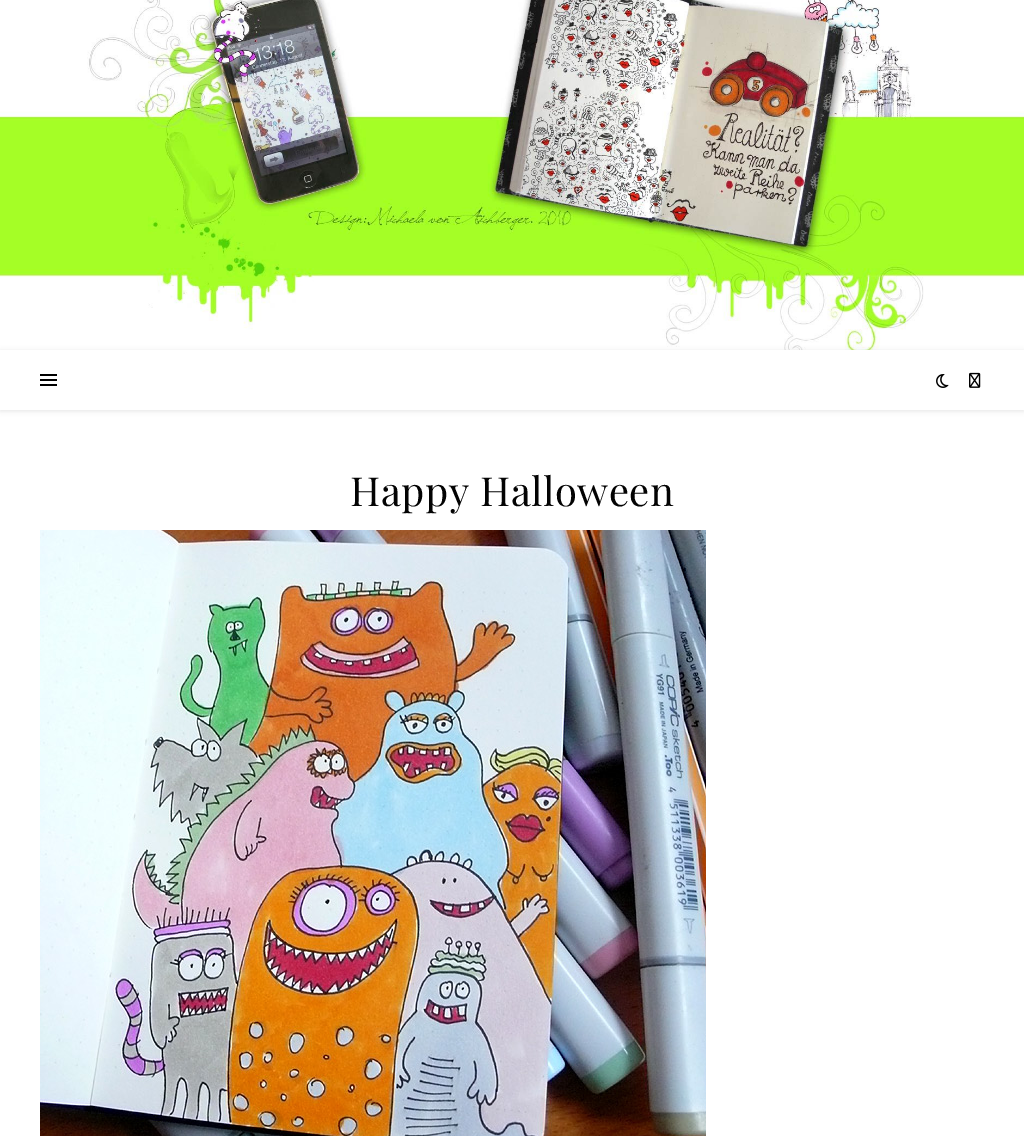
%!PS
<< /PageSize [1024 1136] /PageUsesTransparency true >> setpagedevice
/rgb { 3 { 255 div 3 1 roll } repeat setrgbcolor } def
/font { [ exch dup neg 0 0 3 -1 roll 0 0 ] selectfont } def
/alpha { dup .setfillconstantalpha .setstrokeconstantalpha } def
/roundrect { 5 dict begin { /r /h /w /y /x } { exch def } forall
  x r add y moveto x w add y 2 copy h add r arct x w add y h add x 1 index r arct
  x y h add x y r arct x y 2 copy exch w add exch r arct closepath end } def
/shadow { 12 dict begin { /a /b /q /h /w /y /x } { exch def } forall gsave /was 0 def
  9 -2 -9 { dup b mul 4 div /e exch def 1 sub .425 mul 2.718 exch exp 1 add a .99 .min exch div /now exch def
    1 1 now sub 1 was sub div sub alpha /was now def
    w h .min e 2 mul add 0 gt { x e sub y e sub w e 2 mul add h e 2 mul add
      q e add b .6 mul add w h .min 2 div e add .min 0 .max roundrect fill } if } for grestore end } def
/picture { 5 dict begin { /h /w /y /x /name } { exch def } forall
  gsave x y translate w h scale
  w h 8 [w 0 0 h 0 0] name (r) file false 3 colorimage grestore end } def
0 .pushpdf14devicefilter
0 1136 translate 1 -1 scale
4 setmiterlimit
255 255 255 rgb
0 0 1024 1136 rectfill
(img/1.rgb) 0 0 1024 350 picture
gsave
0 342 moveto 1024 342 lineto 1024 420 lineto 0 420 lineto closepath 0 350 moveto 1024 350 lineto 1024 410 lineto 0 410 lineto closepath eoclip newpath
0 0 0 rgb
0 351 1024 60 0 2.5 0.1 shadow
grestore
[
  [40 374 17 2 0 0 0]
  [40 379 17 2 0 0 0]
  [40 384 17 2 0 0 0]
] { aload pop rgb rectfill } forall
(img/2.rgb) 936 374 13 14 picture
(img/3.rgb) 969 372 12 16 picture
(img/4.rgb) 40 530 666 606 picture
/PlayfairDisplay-Regular 40 font
3 3 3 rgb
350 506 moveto 0.5 0 (Happy Halloween) ashow
.poppdf14devicefilter showpage
